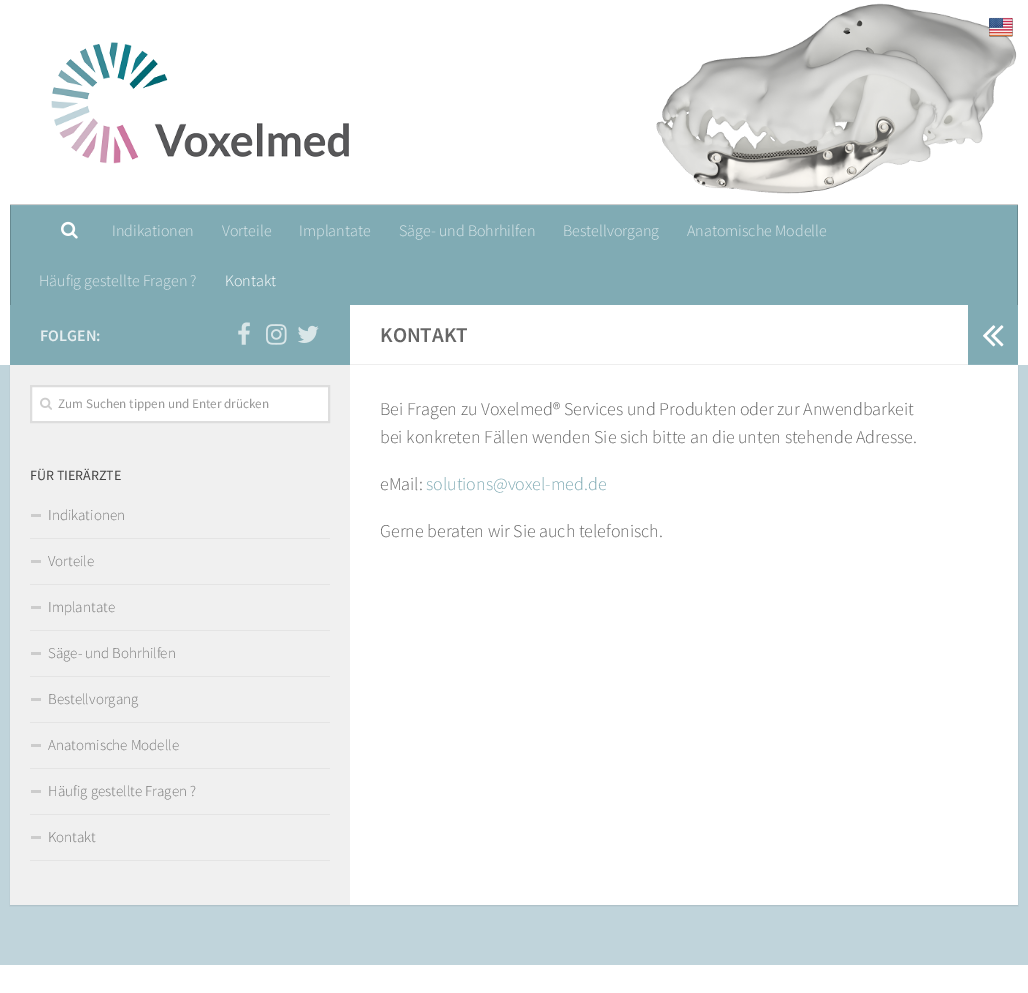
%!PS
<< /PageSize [1028 993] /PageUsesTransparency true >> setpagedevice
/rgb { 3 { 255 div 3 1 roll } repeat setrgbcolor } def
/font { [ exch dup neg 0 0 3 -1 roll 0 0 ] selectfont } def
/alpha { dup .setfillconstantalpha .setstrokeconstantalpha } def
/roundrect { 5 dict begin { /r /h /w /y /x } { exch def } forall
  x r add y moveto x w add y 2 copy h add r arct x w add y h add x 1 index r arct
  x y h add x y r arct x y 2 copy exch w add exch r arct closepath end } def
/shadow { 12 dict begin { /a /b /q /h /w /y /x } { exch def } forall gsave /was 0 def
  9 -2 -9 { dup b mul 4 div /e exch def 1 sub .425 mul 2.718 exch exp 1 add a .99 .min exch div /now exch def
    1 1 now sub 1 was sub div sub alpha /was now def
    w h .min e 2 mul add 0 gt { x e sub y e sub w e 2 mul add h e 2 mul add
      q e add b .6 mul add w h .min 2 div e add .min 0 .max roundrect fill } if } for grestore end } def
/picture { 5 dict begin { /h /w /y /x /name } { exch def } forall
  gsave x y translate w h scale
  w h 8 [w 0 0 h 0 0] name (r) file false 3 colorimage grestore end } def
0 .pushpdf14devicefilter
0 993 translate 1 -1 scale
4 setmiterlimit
192 212 219 rgb
0 0 1028 993 rectfill
0 0 0 rgb
10 306 1008 600 0 0.5 0.1 shadow
255 255 255 rgb
0 0 1028 365 rectfill
(img/2.rgb) 51 3 966 191 picture
(img/1.rgb) 989 17 24 20 picture
[
  [10 204 1008 1 204 204 204]
  [11 206 1006 99 128 171 180]
  [10 205 1008 1 134 175 184]
  [1017 205 1 100 102 137 144]
  [1017 205 1 1 110 143 150]
  [10 205 1 100 102 137 144]
  [10 205 1 1 110 143 150]
] { aload pop rgb rectfill } forall
(img/3.rgb) 61 221 17 18 picture
[
  [350 365 668 540 255 255 255]
  [10 365 340 540 240 240 240]
  [10 305 340 60 128 171 180]
] { aload pop rgb rectfill } forall
(img/4.rgb) 238 322 12 23 picture
(img/5.rgb) 266 324 21 21 picture
(img/6.rgb) 298 325 21 18 picture
255 255 255 rgb
31 386 moveto 329 386 lineto 329 422 lineto 31 422 lineto closepath gsave fill grestore
221 221 221 rgb
2 setlinewidth
stroke
(img/7.rgb) 40 397 12 13 picture
[
  [30 538 300 1 228 228 228]
  [31 514 10 3 204 204 204]
  [30 584 300 1 228 228 228]
  [31 560 10 3 204 204 204]
  [30 630 300 1 228 228 228]
  [31 606 10 3 204 204 204]
  [30 676 300 1 228 228 228]
  [31 652 10 3 204 204 204]
  [30 722 300 1 228 228 228]
  [31 698 10 3 204 204 204]
  [30 768 300 1 228 228 228]
  [31 744 10 3 204 204 204]
  [30 814 300 1 228 228 228]
  [31 790 10 3 204 204 204]
  [30 860 300 1 228 228 228]
  [31 836 10 3 204 204 204]
  [350 364 618 1 238 238 238]
  [968 305 50 59 128 171 180]
  [968 364 50 1 141 179 188]
] { aload pop rgb rectfill } forall
(img/8.rgb) 983 325 21 22 picture
255 255 255 rgb
0 965 1028 28 rectfill
/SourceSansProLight-Light 16 font
217 230 233 rgb
[
  [(Indikationen) 112 236]
  [(Vorteile) 222 236]
  [(Implantate) 299 236]
  [(Säge- und Bohrhilfen) 399 236]
  [(Bestellvorgang) 563 236]
  [(Anatomische Modelle) 687 236]
  [(Häufig gestellte Fragen ?) 39 286]
] { aload pop moveto show } forall
255 255 255 rgb
225 286 moveto (Kontakt) show
/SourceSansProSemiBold-SemiBold 16 font
230 238 240 rgb
40 341 moveto (FOLGEN:) show
/SourceSansPro-Regular 13.1 font
153 153 153 rgb
58 408 moveto (Zum Suchen tippen und Enter drücken) show
/SourceSansPro-Regular 14 font
68 68 68 rgb
30 480 moveto (FÜR TIERÄRZTE) show
/SourceSansProLight-Light 15 font
119 119 119 rgb
[
  [(Indikationen) 48 520]
  [(Vorteile) 48 566]
  [(Implantate) 48 612]
  [(Säge- und Bohrhilfen) 48 658]
  [(Bestellvorgang) 48 704]
  [(Anatomische Modelle) 48 750]
  [(Häufig gestellte Fragen ?) 48 796]
  [(Kontakt) 48 842]
] { aload pop moveto show } forall
/SourceSansProSemiBold-SemiBold 21 font
102 102 102 rgb
380 342 moveto (KONTAKT) show
/SourceSansProLight-Light 18 font
[
  [(Bei Fragen zu Voxelmed® Services und Produkten oder zur Anwendbarkeit) 380 415]
  [(bei konkreten Fällen wenden Sie sich bitte an die unten stehende Adresse.) 380 443]
  [(eMail:) 380 490]
] { aload pop moveto show } forall
128 171 180 rgb
426 490 moveto (solutions@voxel-med.de) show
102 102 102 rgb
380 537 moveto (Gerne beraten wir Sie auch telefonisch.) show
.poppdf14devicefilter showpage
